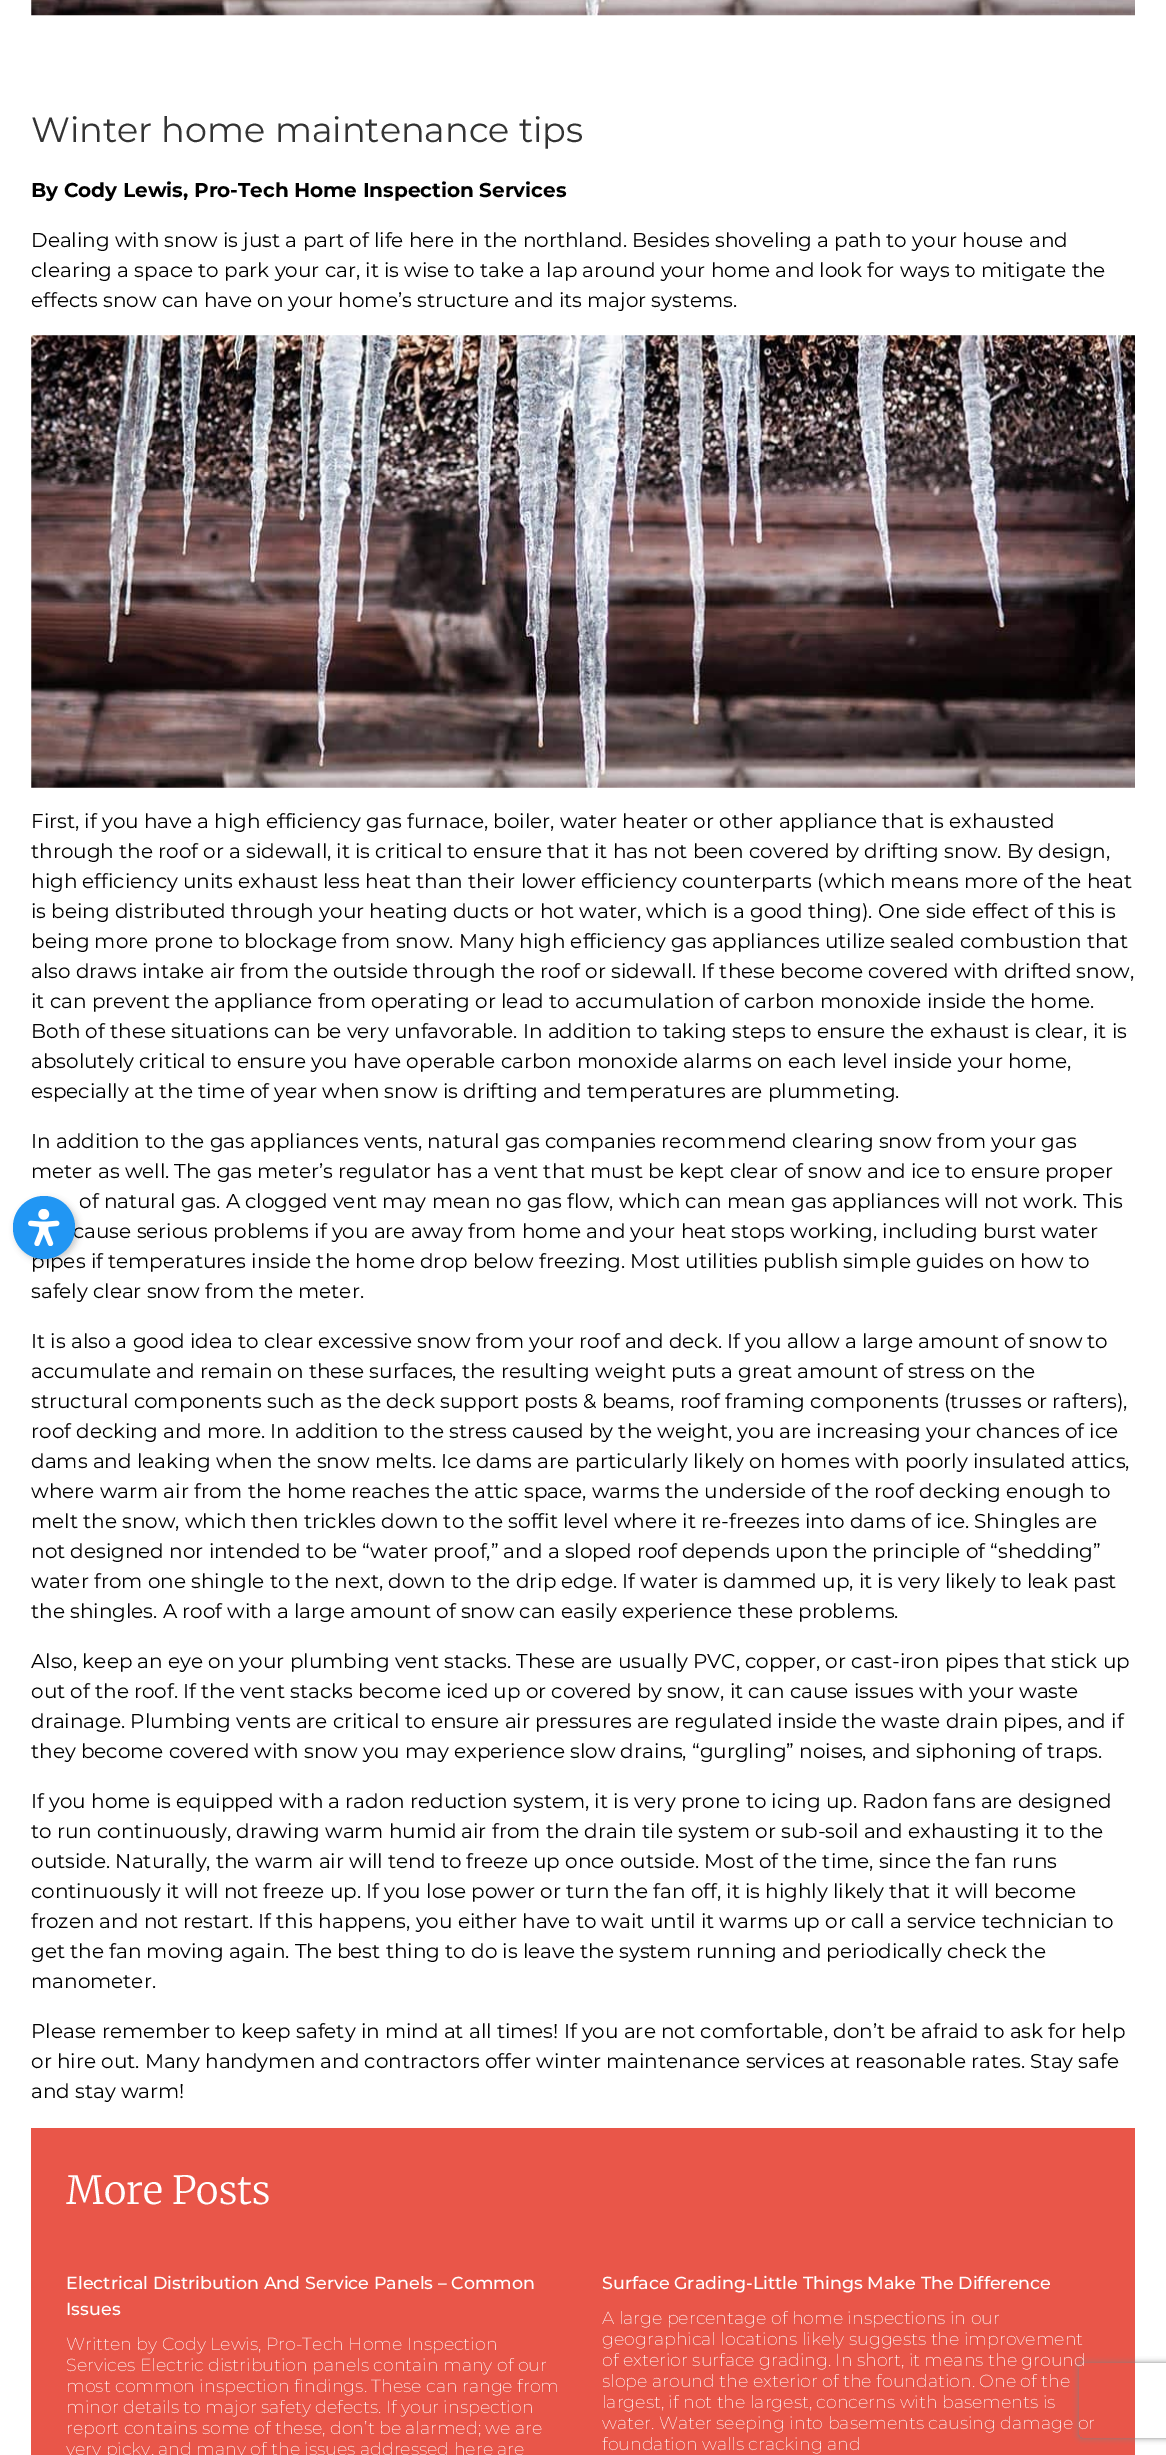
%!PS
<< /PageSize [1166 2455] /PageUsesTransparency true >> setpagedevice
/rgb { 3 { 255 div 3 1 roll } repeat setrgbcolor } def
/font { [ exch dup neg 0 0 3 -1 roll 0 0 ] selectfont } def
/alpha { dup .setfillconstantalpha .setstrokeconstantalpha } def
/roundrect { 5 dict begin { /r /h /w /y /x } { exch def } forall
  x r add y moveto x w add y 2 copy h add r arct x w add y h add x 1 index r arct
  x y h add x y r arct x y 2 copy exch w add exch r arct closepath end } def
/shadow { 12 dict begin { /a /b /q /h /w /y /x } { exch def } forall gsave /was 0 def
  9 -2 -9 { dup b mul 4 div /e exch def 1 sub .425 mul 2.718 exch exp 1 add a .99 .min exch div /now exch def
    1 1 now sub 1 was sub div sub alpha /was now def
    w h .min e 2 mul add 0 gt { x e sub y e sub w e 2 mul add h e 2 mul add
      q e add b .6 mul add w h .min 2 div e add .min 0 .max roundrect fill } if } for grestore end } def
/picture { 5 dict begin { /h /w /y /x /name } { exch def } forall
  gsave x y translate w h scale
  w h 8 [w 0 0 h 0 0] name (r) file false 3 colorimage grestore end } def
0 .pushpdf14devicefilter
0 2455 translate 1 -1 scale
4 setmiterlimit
255 255 255 rgb
0 0 1166 2455 rectfill
(img/1.rgb) 31 0 1104 16 picture
(img/2.rgb) 31 335 1104 453 picture
233 86 73 rgb
31 2128 1104 327 rectfill
0 0 0 rgb
15 1199 63 62 31 3 0.2 shadow
gsave
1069 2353 moveto 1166 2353 lineto 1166 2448 lineto 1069 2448 lineto closepath 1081.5 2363 moveto 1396.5 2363 lineto 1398 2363 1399 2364 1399 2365.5 curveto 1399 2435.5 lineto 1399 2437 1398 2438 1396.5 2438 curveto 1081.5 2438 lineto 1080 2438 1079 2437 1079 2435.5 curveto 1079 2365.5 lineto 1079 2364 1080 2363 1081.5 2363 curveto closepath eoclip newpath
128 128 128 rgb
1079 2363 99 75 2.5 3 1 shadow
grestore
/Montserrat-Regular 35 font
51 51 51 rgb
31 142 moveto (Winter home maintenance tips) show
/Montserrat-Bold 20 font
0 0 0 rgb
31 197 moveto (By Cody Lewis, Pro-Tech Home Inspection Services) show
/Montserrat-Regular 20 font
[
  [(Dealing with snow is just a part of life here in the northland. Besides shoveling a path to your house and) 31 247]
  [(clearing a space to park your car, it is wise to take a lap around your home and look for ways to mitigate the) 31 277]
  [(effects snow can have on your home’s structure and its major systems.) 31 307]
  [(First, if you have a high efficiency gas furnace, boiler, water heater or other appliance that is exhausted) 31 828]
  [(through the roof or a sidewall, it is critical to ensure that it has not been covered by drifting snow. By design,) 31 858]
  [(high efficiency units exhaust less heat than their lower efficiency counterparts \(which means more of the heat) 31 888]
  [(is being distributed through your heating ducts or hot water, which is a good thing\). One side effect of this is) 31 918]
  [(being more prone to blockage from snow. Many high efficiency gas appliances utilize sealed combustion that) 31 948]
  [(also draws intake air from the outside through the roof or sidewall. If these become covered with drifted snow,) 31 978]
  [(it can prevent the appliance from operating or lead to accumulation of carbon monoxide inside the home.) 31 1008]
  [(Both of these situations can be very unfavorable. In addition to taking steps to ensure the exhaust is clear, it is) 31 1038]
  [(absolutely critical to ensure you have operable carbon monoxide alarms on each level inside your home,) 31 1068]
  [(especially at the time of year when snow is drifting and temperatures are plummeting.) 31 1098]
  [(In addition to the gas appliances vents, natural gas companies recommend clearing snow from your gas) 31 1148]
  [(meter as well. The gas meter’s regulator has a vent that must be kept clear of snow and ice to ensure proper) 31 1178]
  [(of natural gas. A clogged vent may mean no gas flow, which can mean gas appliances will not work. This) 79 1208]
  [(cause serious problems if you are away from home and your heat stops working, including burst water) 73 1238]
  [(pipes if temperatures inside the home drop below freezing. Most utilities publish simple guides on how to) 31 1268]
  [(safely clear snow from the meter.) 31 1298]
  [(It is also a good idea to clear excessive snow from your roof and deck. If you allow a large amount of snow to) 31 1348]
  [(accumulate and remain on these surfaces, the resulting weight puts a great amount of stress on the) 31 1378]
  [(structural components such as the deck support posts & beams, roof framing components \(trusses or rafters\),) 31 1408]
  [(roof decking and more. In addition to the stress caused by the weight, you are increasing your chances of ice) 31 1438]
  [(dams and leaking when the snow melts. Ice dams are particularly likely on homes with poorly insulated attics,) 31 1468]
  [(where warm air from the home reaches the attic space, warms the underside of the roof decking enough to) 31 1498]
  [(melt the snow, which then trickles down to the soffit level where it re-freezes into dams of ice. Shingles are) 31 1528]
  [(not designed nor intended to be “water proof,” and a sloped roof depends upon the principle of “shedding”) 31 1558]
  [(water from one shingle to the next, down to the drip edge. If water is dammed up, it is very likely to leak past) 31 1588]
  [(the shingles. A roof with a large amount of snow can easily experience these problems.) 31 1618]
  [(Also, keep an eye on your plumbing vent stacks. These are usually PVC, copper, or cast-iron pipes that stick up) 31 1668]
  [(out of the roof. If the vent stacks become iced up or covered by snow, it can cause issues with your waste) 31 1698]
  [(drainage. Plumbing vents are critical to ensure air pressures are regulated inside the waste drain pipes, and if) 31 1728]
  [(they become covered with snow you may experience slow drains, “gurgling” noises, and siphoning of traps.) 31 1758]
  [(If you home is equipped with a radon reduction system, it is very prone to icing up. Radon fans are designed) 31 1808]
  [(to run continuously, drawing warm humid air from the drain tile system or sub-soil and exhausting it to the) 31 1838]
  [(outside. Naturally, the warm air will tend to freeze up once outside. Most of the time, since the fan runs) 31 1868]
  [(continuously it will not freeze up. If you lose power or turn the fan off, it is highly likely that it will become) 31 1898]
  [(frozen and not restart. If this happens, you either have to wait until it warms up or call a service technician to) 31 1928]
  [(get the fan moving again. The best thing to do is leave the system running and periodically check the) 31 1958]
  [(manometer.) 31 1988]
  [(Please remember to keep safety in mind at all times! If you are not comfortable, don’t be afraid to ask for help) 31 2038]
  [(or hire out. Many handymen and contractors offer winter maintenance services at reasonable rates. Stay safe) 31 2068]
  [(and stay warm!) 31 2098]
] { aload pop moveto show } forall
/Merriweather-Light 38.75 font
255 255 255 rgb
66 2204 moveto (More Posts) show
/Montserrat-Medium 17.5 font
66 2289 moveto (Electrical Distribution And Service Panels – Common) show
66 2315 moveto (Issues) show
/Montserrat-ExtraLight 17.5 font
[
  [(Written by Cody Lewis, Pro-Tech Home Inspection) 66 2350]
  [(Services Electric distribution panels contain many of our) 66 2371]
  [(most common inspection findings. These can range from) 66 2392]
  [(minor details to major safety defects. If your inspection) 66 2413]
  [(report contains some of these, don’t be alarmed; we are) 66 2434]
  [(very picky, and many of the issues addressed here are) 66 2455]
] { aload pop moveto show } forall
/Montserrat-Medium 17.5 font
602 2289 moveto (Surface Grading-Little Things Make The Difference) show
/Montserrat-ExtraLight 17.5 font
602 2324 moveto (A large percentage of home inspections in our) show
602 2345 moveto (geographical locations likely suggests the improvement) show
gsave
603 2270 497 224 rectclip
602 2366 moveto (of exterior surface grading. In short, it means the ground) show
602 2387 moveto (slope around the exterior of the foundation. One of the) show
grestore
[
  [(largest, if not the largest, concerns with basements is) 602 2408]
  [(water. Water seeping into basements causing damage or) 602 2429]
  [(foundation walls cracking and) 602 2450]
] { aload pop moveto show } forall
33 150 243 rgb
13 1196 62 63 31 roundrect fill
(img/3.rgb) 28 1209 32 37 picture
.poppdf14devicefilter showpage
